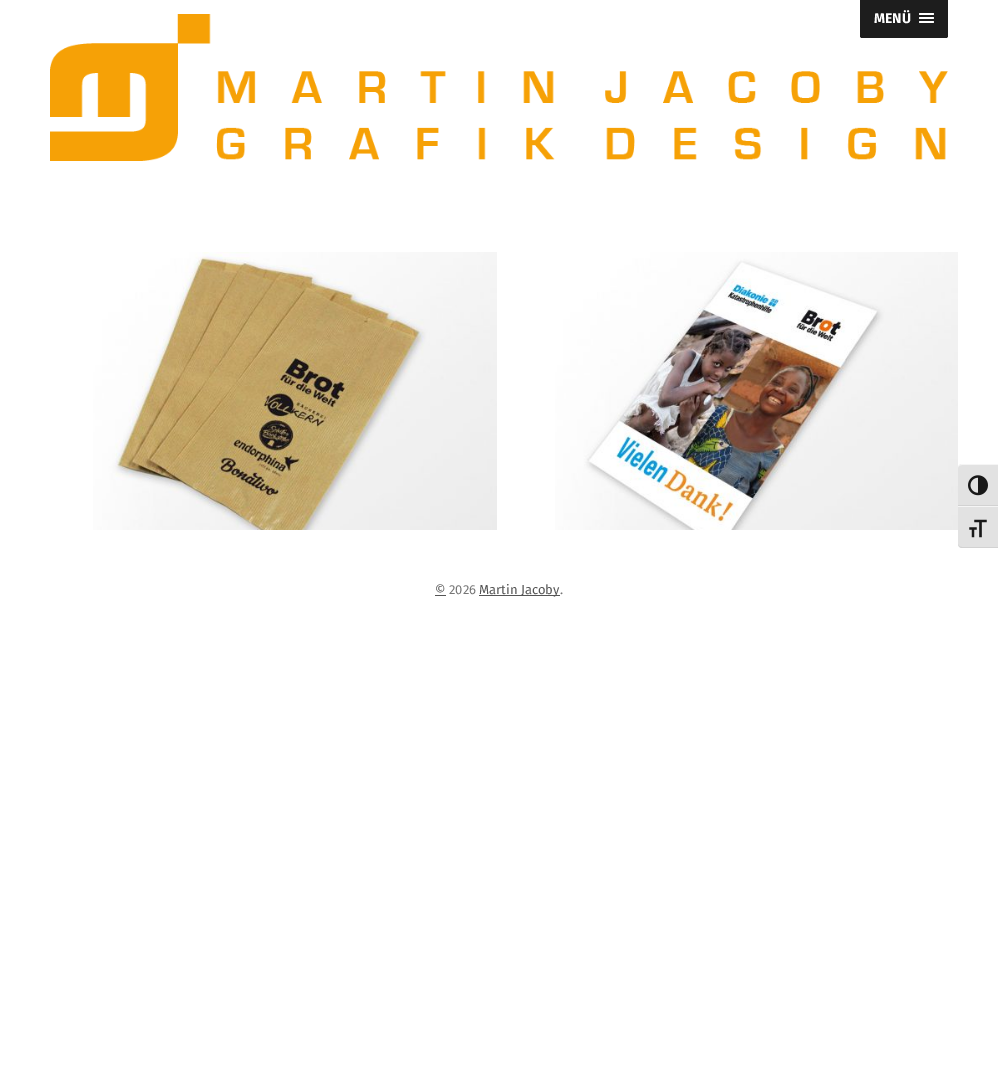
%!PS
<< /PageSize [998 1078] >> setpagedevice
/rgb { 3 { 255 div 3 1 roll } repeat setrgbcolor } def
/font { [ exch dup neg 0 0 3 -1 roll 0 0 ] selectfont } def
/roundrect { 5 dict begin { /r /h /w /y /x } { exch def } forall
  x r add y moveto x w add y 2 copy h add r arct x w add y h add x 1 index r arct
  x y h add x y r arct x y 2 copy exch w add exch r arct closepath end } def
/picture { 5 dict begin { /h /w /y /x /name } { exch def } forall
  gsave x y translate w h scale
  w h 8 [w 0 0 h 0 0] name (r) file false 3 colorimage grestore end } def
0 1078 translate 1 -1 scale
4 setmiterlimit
255 255 255 rgb
0 0 998 1078 rectfill
(img/1.rgb) 50 14 898 147 picture
29 29 29 rgb
860 0 moveto 948 0 lineto 948 36 lineto 948 37 947 38 946 38 curveto 862 38 lineto 861 38 860 37 860 36 curveto closepath fill
255 255 255 rgb
919 13 15 2 1 roundrect fill
919 17 15 2 1 roundrect fill
919 21 15 2 1 roundrect fill
(img/2.rgb) 93 252 404 278 picture
(img/3.rgb) 555 252 403 278 picture
226 226 226 rgb
962 464 moveto 998 464 lineto 998 506 lineto 958 506 lineto 958 468 lineto 958 466 960 464 962 464 curveto closepath fill
245 245 245 rgb
962 465 moveto 998 465 lineto 998 464 lineto 962 464 lineto 960 464 958 466 958 468 curveto 958 466 960 465 962 465 curveto closepath fill
210 210 210 rgb
958 505 40 1 rectfill
(img/4.rgb) 968 475 20 21 picture
226 226 226 rgb
958 506 moveto 998 506 lineto 998 548 lineto 962 548 lineto 960 548 958 546 958 544 curveto closepath fill
245 245 245 rgb
958 506 40 1 rectfill
210 210 210 rgb
998 548 moveto 998 547 lineto 962 547 lineto 960 547 958 546 958 544 curveto 958 546 960 548 962 548 curveto closepath fill
(img/5.rgb) 969 519 18 19 picture
85 85 85 rgb
435 595 11 1 rectfill
479 595 81 1 rectfill
/FiraSans-Bold 14 font
255 255 255 rgb
874 23 moveto (MENÜ) show
/FiraSans-Regular 13 font
85 85 85 rgb
435 594 moveto (©) show
118 118 118 rgb
449 594 moveto (2026) show
85 85 85 rgb
479 594 moveto (Martin Jacoby) show
118 118 118 rgb
560 594 moveto (.) show
showpage
